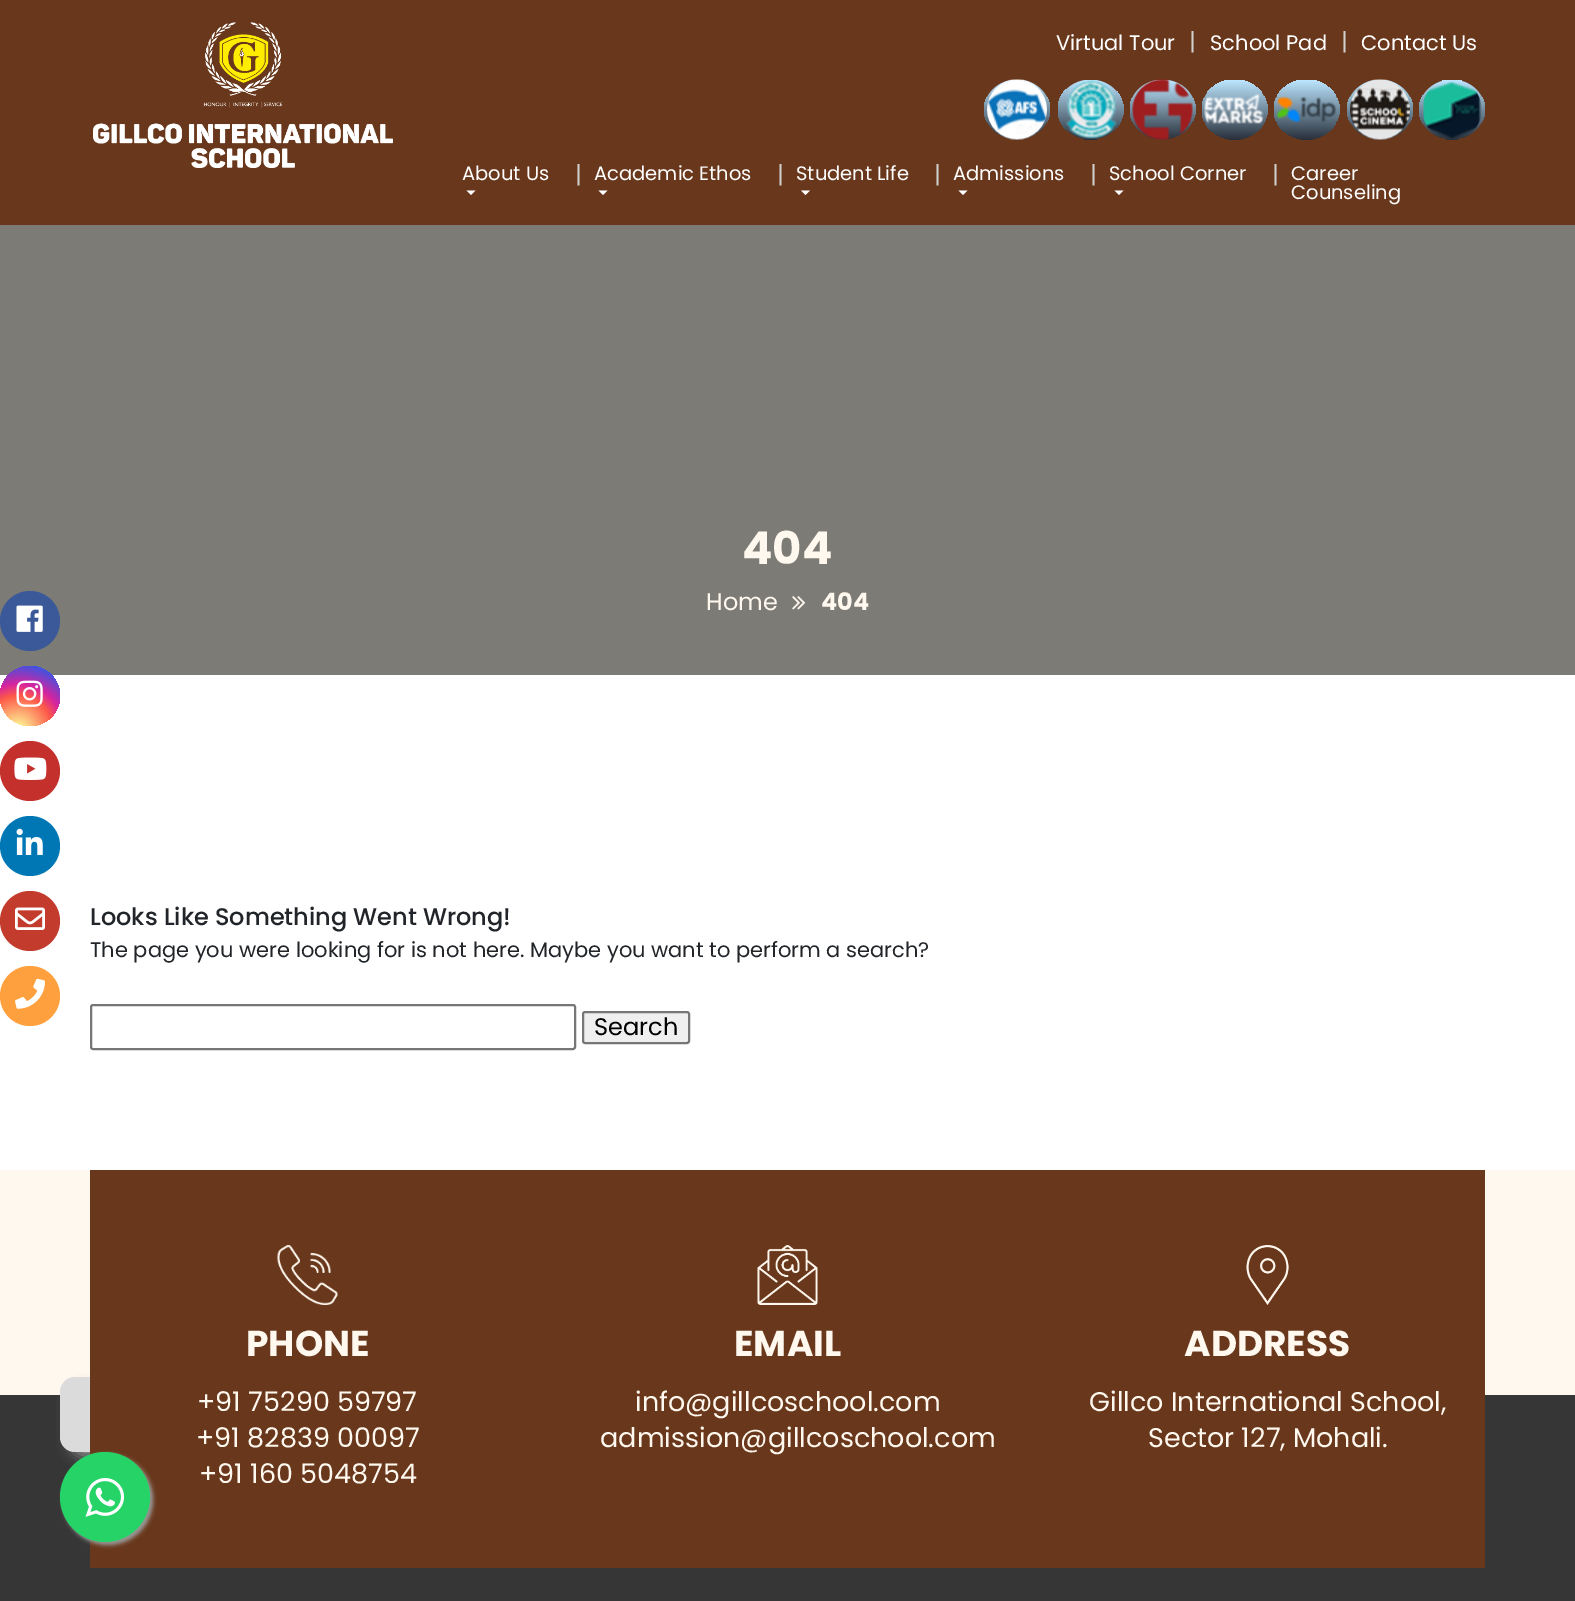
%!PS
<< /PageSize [1575 1601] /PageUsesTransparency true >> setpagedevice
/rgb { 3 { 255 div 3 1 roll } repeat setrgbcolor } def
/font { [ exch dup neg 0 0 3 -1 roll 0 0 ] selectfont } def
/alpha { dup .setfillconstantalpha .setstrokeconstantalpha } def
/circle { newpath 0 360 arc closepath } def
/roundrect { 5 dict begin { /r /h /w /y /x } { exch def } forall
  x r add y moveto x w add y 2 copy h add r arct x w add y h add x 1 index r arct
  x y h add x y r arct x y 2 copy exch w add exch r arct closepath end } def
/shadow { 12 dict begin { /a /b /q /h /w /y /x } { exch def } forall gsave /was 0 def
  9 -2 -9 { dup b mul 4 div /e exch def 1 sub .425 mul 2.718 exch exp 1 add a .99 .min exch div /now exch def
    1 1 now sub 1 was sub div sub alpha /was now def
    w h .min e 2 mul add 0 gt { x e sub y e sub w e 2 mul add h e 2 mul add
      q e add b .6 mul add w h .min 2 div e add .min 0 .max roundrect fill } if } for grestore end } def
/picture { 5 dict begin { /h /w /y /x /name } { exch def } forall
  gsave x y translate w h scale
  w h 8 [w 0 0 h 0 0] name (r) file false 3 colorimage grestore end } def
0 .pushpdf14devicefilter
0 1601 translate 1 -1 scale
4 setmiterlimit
255 248 239 rgb
0 0 1575 1601 rectfill
105 56 28 rgb
0 0 1575 225 rectfill
(img/1.rgb) 93 22 300 146 picture
gsave
984 80 66 64 rectclip
gsave 1017 79.5 moveto 1035 79.5 1050 93 1050 109.5 curveto 1050 126 1035 139.5 1017 139.5 curveto 999 139.5 984 126 984 109.5 curveto 984 93 999 79.5 1017 79.5 curveto closepath clip newpath
<< /ShadingType 2 /ColorSpace /DeviceRGB /Coords [1017 80 1017 140] /Extend [true true] /Function << /FunctionType 2 /Domain [0 1] /C0 [0.737 0.902 1] /C1 [0.157 0.184 0.227] /N 1 >> >> shfill grestore
grestore
(img/2.rgb) 987 79 60 61 picture
gsave
1058 80 66 64 rectclip
gsave 1090.5 79.5 moveto 1108.5 79.5 1123.5 93 1123.5 109.5 curveto 1123.5 126 1108.5 139.5 1090.5 139.5 curveto 1072.5 139.5 1057.5 126 1057.5 109.5 curveto 1057.5 93 1072.5 79.5 1090.5 79.5 curveto closepath clip newpath
<< /ShadingType 2 /ColorSpace /DeviceRGB /Coords [1091 80 1091 140] /Extend [true true] /Function << /FunctionType 2 /Domain [0 1] /C0 [0.737 0.902 1] /C1 [0.157 0.184 0.227] /N 1 >> >> shfill grestore
grestore
(img/3.rgb) 1066 80 51 59 picture
gsave
1130 80 66 64 rectclip
gsave 1162.5 79.5 moveto 1180.5 79.5 1195.5 93 1195.5 109.5 curveto 1195.5 126 1180.5 139.5 1162.5 139.5 curveto 1144.5 139.5 1129.5 126 1129.5 109.5 curveto 1129.5 93 1144.5 79.5 1162.5 79.5 curveto closepath clip newpath
<< /ShadingType 2 /ColorSpace /DeviceRGB /Coords [1163 80 1163 140] /Extend [true true] /Function << /FunctionType 2 /Domain [0 1] /C0 [0.737 0.902 1] /C1 [0.157 0.184 0.227] /N 1 >> >> shfill grestore
grestore
(img/4.rgb) 1132 79 61 61 picture
gsave
1202 80 66 64 rectclip
gsave 1234.5 79.5 moveto 1252.5 79.5 1267.5 93 1267.5 109.5 curveto 1267.5 126 1252.5 139.5 1234.5 139.5 curveto 1216.5 139.5 1201.5 126 1201.5 109.5 curveto 1201.5 93 1216.5 79.5 1234.5 79.5 curveto closepath clip newpath
<< /ShadingType 2 /ColorSpace /DeviceRGB /Coords [1235 80 1235 140] /Extend [true true] /Function << /FunctionType 2 /Domain [0 1] /C0 [0.737 0.902 1] /C1 [0.157 0.184 0.227] /N 1 >> >> shfill grestore
grestore
(img/5.rgb) 1204 93 60 31 picture
gsave
1274 80 66 64 rectclip
gsave 1306.5 79.5 moveto 1324.5 79.5 1339.5 93 1339.5 109.5 curveto 1339.5 126 1324.5 139.5 1306.5 139.5 curveto 1288.5 139.5 1273.5 126 1273.5 109.5 curveto 1273.5 93 1288.5 79.5 1306.5 79.5 curveto closepath clip newpath
<< /ShadingType 2 /ColorSpace /DeviceRGB /Coords [1307 80 1307 140] /Extend [true true] /Function << /FunctionType 2 /Domain [0 1] /C0 [0.737 0.902 1] /C1 [0.157 0.184 0.227] /N 1 >> >> shfill grestore
grestore
(img/6.rgb) 1276 96 61 27 picture
gsave
1347 80 66 64 rectclip
gsave 1380 79.5 moveto 1398 79.5 1413 93 1413 109.5 curveto 1413 126 1398 139.5 1380 139.5 curveto 1362 139.5 1347 126 1347 109.5 curveto 1347 93 1362 79.5 1380 79.5 curveto closepath clip newpath
<< /ShadingType 2 /ColorSpace /DeviceRGB /Coords [1380 80 1380 140] /Extend [true true] /Function << /FunctionType 2 /Domain [0 1] /C0 [0.737 0.902 1] /C1 [0.157 0.184 0.227] /N 1 >> >> shfill grestore
grestore
(img/7.rgb) 1350 79 60 61 picture
gsave
1419 80 66 64 rectclip
gsave 1452 79.5 moveto 1470 79.5 1485 93 1485 109.5 curveto 1485 126 1470 139.5 1452 139.5 curveto 1434 139.5 1419 126 1419 109.5 curveto 1419 93 1434 79.5 1452 79.5 curveto closepath clip newpath
<< /ShadingType 2 /ColorSpace /DeviceRGB /Coords [1452 80 1452 140] /Extend [true true] /Function << /FunctionType 2 /Domain [0 1] /C0 [0.737 0.902 1] /C1 [0.157 0.184 0.227] /N 1 >> >> shfill grestore
grestore
(img/8.rgb) 1423 81 59 58 picture
255 255 255 rgb
466.5 190.5 moveto 475.5 190.5 lineto 471 195 lineto closepath fill
598.5 190.5 moveto 607.5 190.5 lineto 603 195 lineto closepath fill
801 190.5 moveto 810 190.5 lineto 805.5 195 lineto closepath fill
958.5 190.5 moveto 967.5 190.5 lineto 963 195 lineto closepath fill
1114.5 190.5 moveto 1123.5 190.5 lineto 1119 195 lineto closepath fill
125 123 118 rgb
0 225 1575 450 rectfill
(img/9.rgb) 792 596 13 14 picture
59 89 152 rgb
30 621 30 circle fill
(img/10.rgb) 16 605 27 27 picture
255 255 255 rgb
0 675 1575 495 rectfill
gsave 30 696 30 circle clip newpath 18 730 translate 77 77 scale
<< /ShadingType 3 /ColorSpace /DeviceRGB /Coords [0 0 0 0 0 1] /Extend [true true] /Function << /FunctionType 3 /Domain [0 1] /Functions [<< /FunctionType 2 /Domain [0 1] /C0 [0.992 0.957 0.592] /C1 [0.992 0.957 0.592] /N 1 >> << /FunctionType 2 /Domain [0 1] /C0 [0.992 0.957 0.592] /C1 [0.992 0.349 0.286] /N 1 >> << /FunctionType 2 /Domain [0 1] /C0 [0.992 0.349 0.286] /C1 [0.839 0.141 0.624] /N 1 >> << /FunctionType 2 /Domain [0 1] /C0 [0.839 0.141 0.624] /C1 [0.157 0.353 0.922] /N 1 >> << /FunctionType 2 /Domain [0 1] /C0 [0.157 0.353 0.922] /C1 [0.157 0.353 0.922] /N 1 >>] /Bounds [0.05 0.45 0.6 0.9] /Encode [0 1 0 1 0 1 0 1 0 1] >> >> shfill grestore
(img/11.rgb) 16 680 27 27 picture
196 48 43 rgb
30 771 30 circle fill
(img/12.rgb) 14 757 33 23 picture
0 119 181 rgb
30 846 30 circle fill
(img/13.rgb) 16 828 27 27 picture
194 59 44 rgb
30 921 30 circle fill
(img/14.rgb) 15 907 30 23 picture
255 160 63 rgb
30 996 30 circle fill
(img/15.rgb) 15 978 30 31 picture
118 118 118 rgb
2 setlinewidth
91 1005 484 44 2 roundrect stroke
239 239 239 rgb
583 1012 106 31 2 roundrect gsave fill grestore
118 118 118 rgb
stroke
54 54 54 rgb
0 1395 1575 206 rectfill
163 163 163 rgb
72 1389 366 66 11 7 1 shadow
219 219 219 rgb
60 1377 375 75 15 roundrect fill
105 56 28 rgb
90 1170 1395 398 rectfill
(img/16.rgb) 277 1245 61 60 picture
(img/17.rgb) 757 1245 61 60 picture
(img/18.rgb) 1246 1245 43 60 picture
153 153 153 rgb
63 1455 90 90 45 2 1 shadow
37 211 102 rgb
105 1497 45 circle fill
(img/19.rgb) 85 1478 40 39 picture
/Poppins-Regular 21 font
255 255 255 rgb
1056 50 moveto (Virtual Tour) show
/Poppins-Regular 24 font
207 207 207 rgb
1189 50 moveto (|) show
/Poppins-Regular 21 font
255 255 255 rgb
1210 50 moveto (School Pad) show
/Poppins-Regular 24 font
207 207 207 rgb
1341 50 moveto (|) show
/Poppins-Regular 21 font
255 255 255 rgb
1361 50 moveto (Contact Us) show
/Poppins-Regular 19.5 font
462 180 moveto (About Us) show
/Poppins-Regular 24 font
207 207 207 rgb
575 183 moveto (|) show
/Poppins-Regular 19.5 font
255 255 255 rgb
594 180 moveto (Academic Ethos) show
/Poppins-Regular 24 font
207 207 207 rgb
777 183 moveto (|) show
/Poppins-Regular 19.5 font
255 255 255 rgb
796 180 moveto (Student Life) show
/Poppins-Regular 24 font
207 207 207 rgb
934 183 moveto (|) show
/Poppins-Regular 19.5 font
255 255 255 rgb
953 180 moveto (Admissions) show
/Poppins-Regular 24 font
207 207 207 rgb
1090 183 moveto (|) show
/Poppins-Regular 19.5 font
255 255 255 rgb
1109 180 moveto (School Corner) show
/Poppins-Regular 24 font
207 207 207 rgb
1272 183 moveto (|) show
/Poppins-Regular 19.5 font
255 255 255 rgb
1291 180 moveto (Career) show
1291 199 moveto (Counseling) show
/Poppins-Bold 45 font
255 248 239 rgb
742 564 moveto (404) show
/Poppins-Regular 24 font
706 610 moveto (Home) show
/Poppins-Bold 24 font
821 610 moveto (404) show
/Poppins-Medium 24 font
33 37 41 rgb
90 925 moveto (Looks Like Something Went Wrong!) show
/Poppins-Regular 21 font
90 957 moveto (The page you were looking for is not here. Maybe you want to perform a search?) show
/Poppins-Regular 24 font
0 0 0 rgb
594 1035 moveto (Search) show
/Poppins-Bold 36 font
255 248 239 rgb
246 1356 moveto (PHONE) show
/Poppins-Regular 27 font
[
  [(+91 75290 59797) 197 1411]
  [(+91 82839 00097) 196 1447]
  [(+91 160 5048754) 199 1483]
] { aload pop moveto show } forall
/Poppins-Bold 36 font
734 1356 moveto (EMAIL) show
/Poppins-Regular 27 font
635 1411 moveto (info@gillcoschool.com) show
600 1447 moveto (admission@gillcoschool.com) show
/Poppins-Bold 36 font
1184 1356 moveto (ADDRESS) show
/Poppins-Regular 27 font
1089 1411 moveto (Gillco International School,) show
1148 1447 moveto (Sector 127, Mohali.) show
.poppdf14devicefilter showpage
